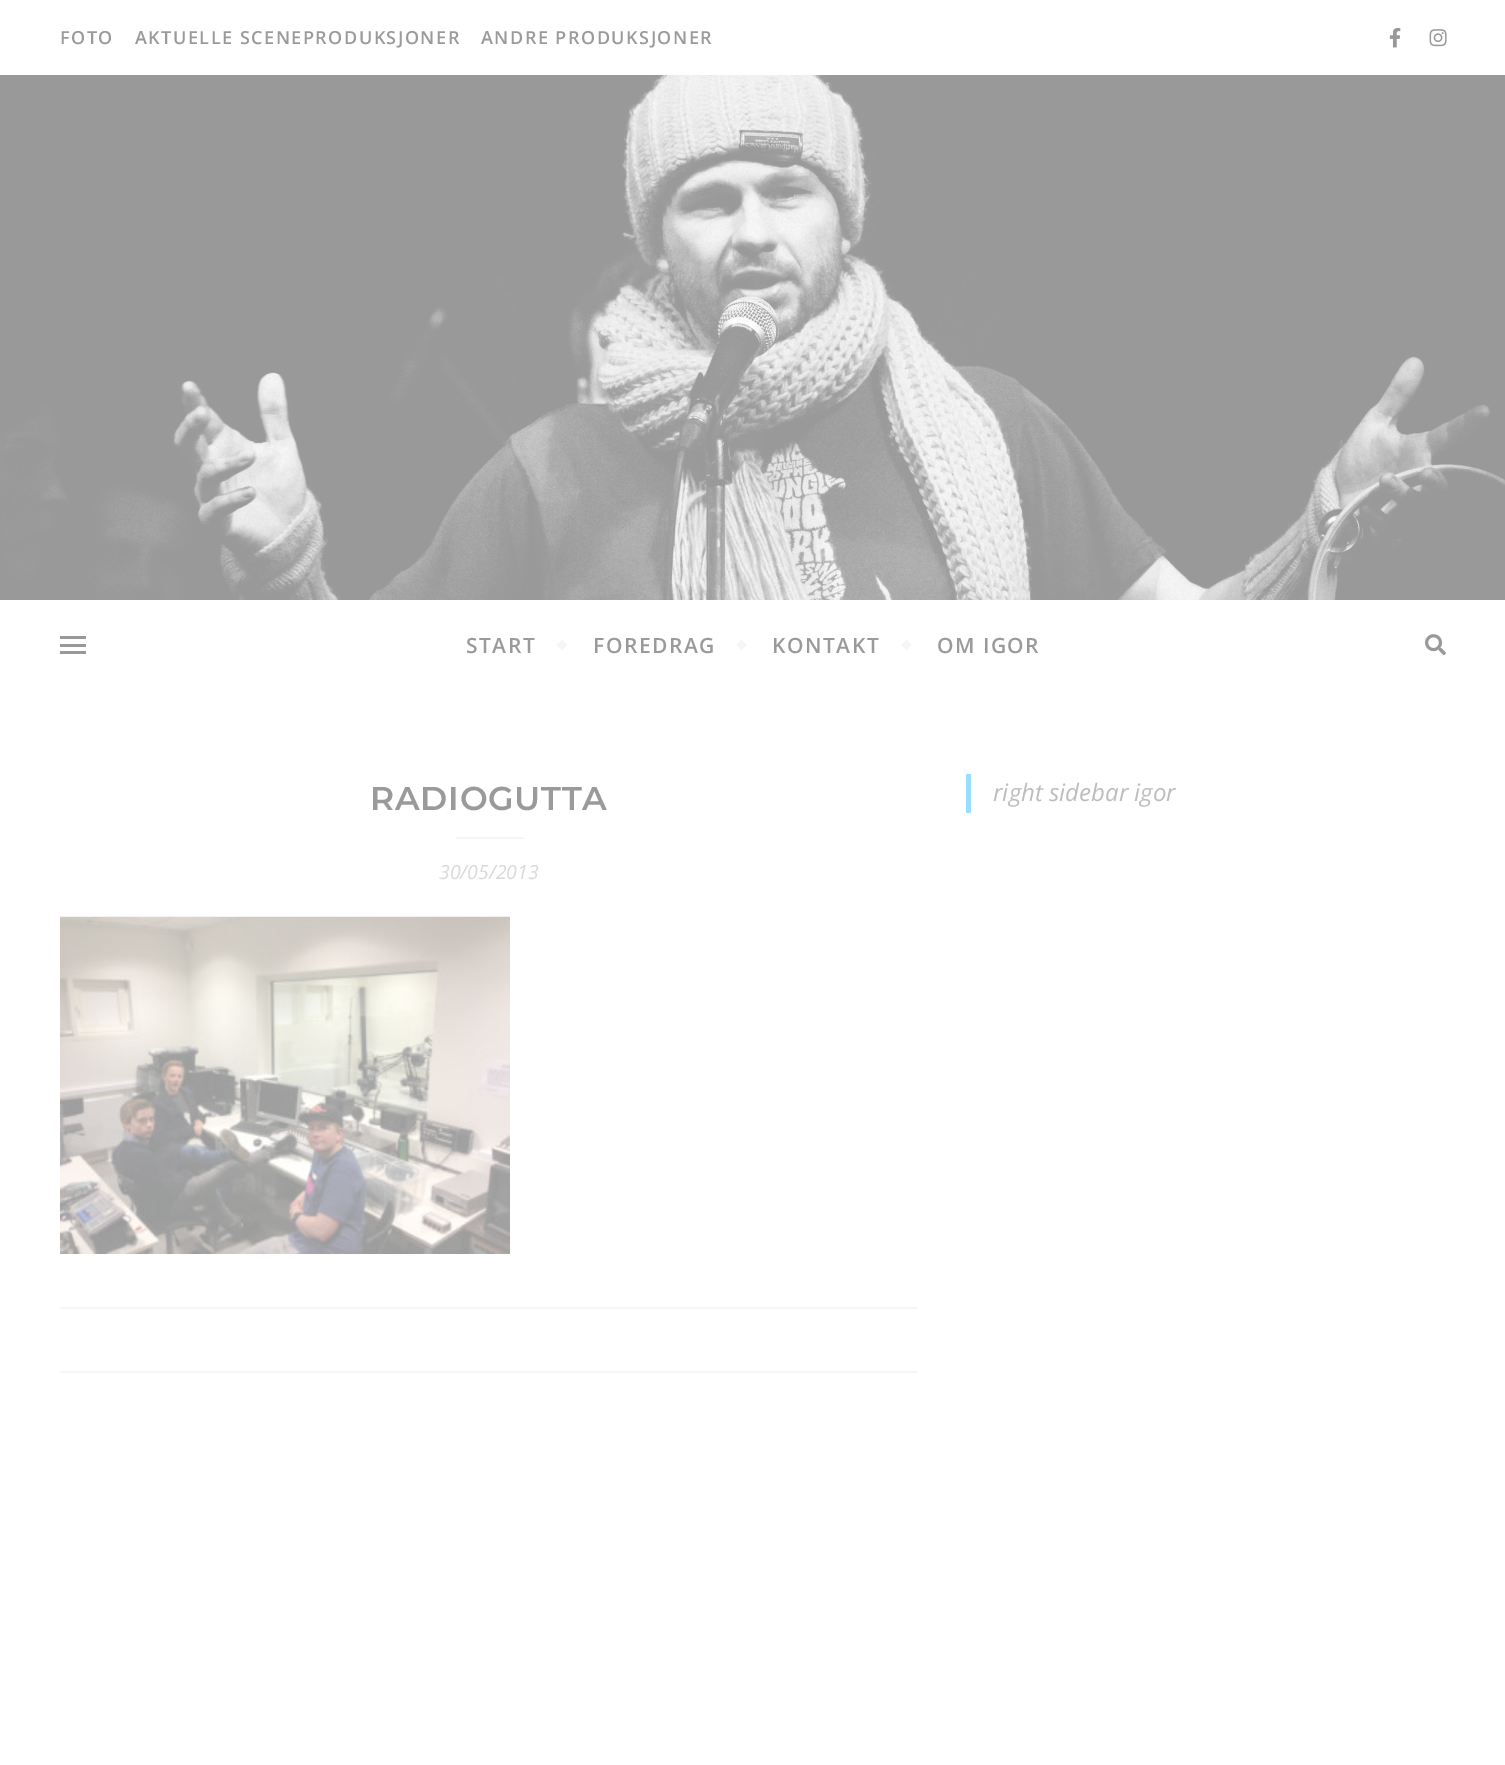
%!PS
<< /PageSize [1505 1765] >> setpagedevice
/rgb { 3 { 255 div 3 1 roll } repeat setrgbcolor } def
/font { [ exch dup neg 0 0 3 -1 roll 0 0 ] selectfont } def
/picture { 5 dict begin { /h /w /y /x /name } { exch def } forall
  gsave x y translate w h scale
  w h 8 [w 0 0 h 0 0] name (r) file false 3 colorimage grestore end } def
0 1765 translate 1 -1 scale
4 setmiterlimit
255 255 255 rgb
0 0 1505 1765 rectfill
(img/1.rgb) 1389 27 12 21 picture
(img/2.rgb) 1429 29 18 18 picture
(img/3.rgb) 0 75 1505 525 picture
[
  [60 636 26 3 153 153 153]
  [60 644 26 3 153 153 153]
  [60 651 26 3 153 153 153]
] { aload pop rgb rectfill } forall
246 246 246 rgb
556.5 645 moveto 562 639.5 lineto 567 645 lineto 562 650.5 lineto closepath fill
736.5 645 moveto 741.5 639.5 lineto 747 645 lineto 741.5 650.5 lineto closepath fill
901 645 moveto 906.5 639.5 lineto 911.5 645 lineto 906.5 650.5 lineto closepath fill
(img/4.rgb) 1425 634 21 22 picture
456 837 68 2 rectfill
(img/5.rgb) 60 916 450 338 picture
[
  [60 1307 858 2 246 246 246]
  [60 1371 858 2 246 246 246]
  [966 774 5 39 153 221 255]
] { aload pop rgb rectfill } forall
/OpenSans-SemiBold 18 font
154 154 154 rgb
60 44 moveto 1.5 0 (FOTO) ashow
135 44 moveto 1.5 0 (AKTUELLE SCENEPRODUKSJONER) ashow
481 44 moveto 1.5 0 (ANDRE PRODUKSJONER) ashow
/OpenSans-SemiBold 21 font
466 653 moveto 1.5 0 (START) ashow
593 653 moveto 1.5 0 (FOREDRAG) ashow
772 653 moveto 1.5 0 (KONTAKT) ashow
937 653 moveto 1.5 0 (OM IGOR) ashow
/Montserrat-SemiBold 33 font
370 810 moveto 0.75 0 (RADIOGUTTA) ashow
/OpenSans-Italic 19.5 font
217 217 217 rgb
439 879 moveto (30/05/2013) show
/OpenSans-Italic 24 font
189 189 189 rgb
993 801 moveto (right sidebar igor) show
showpage
